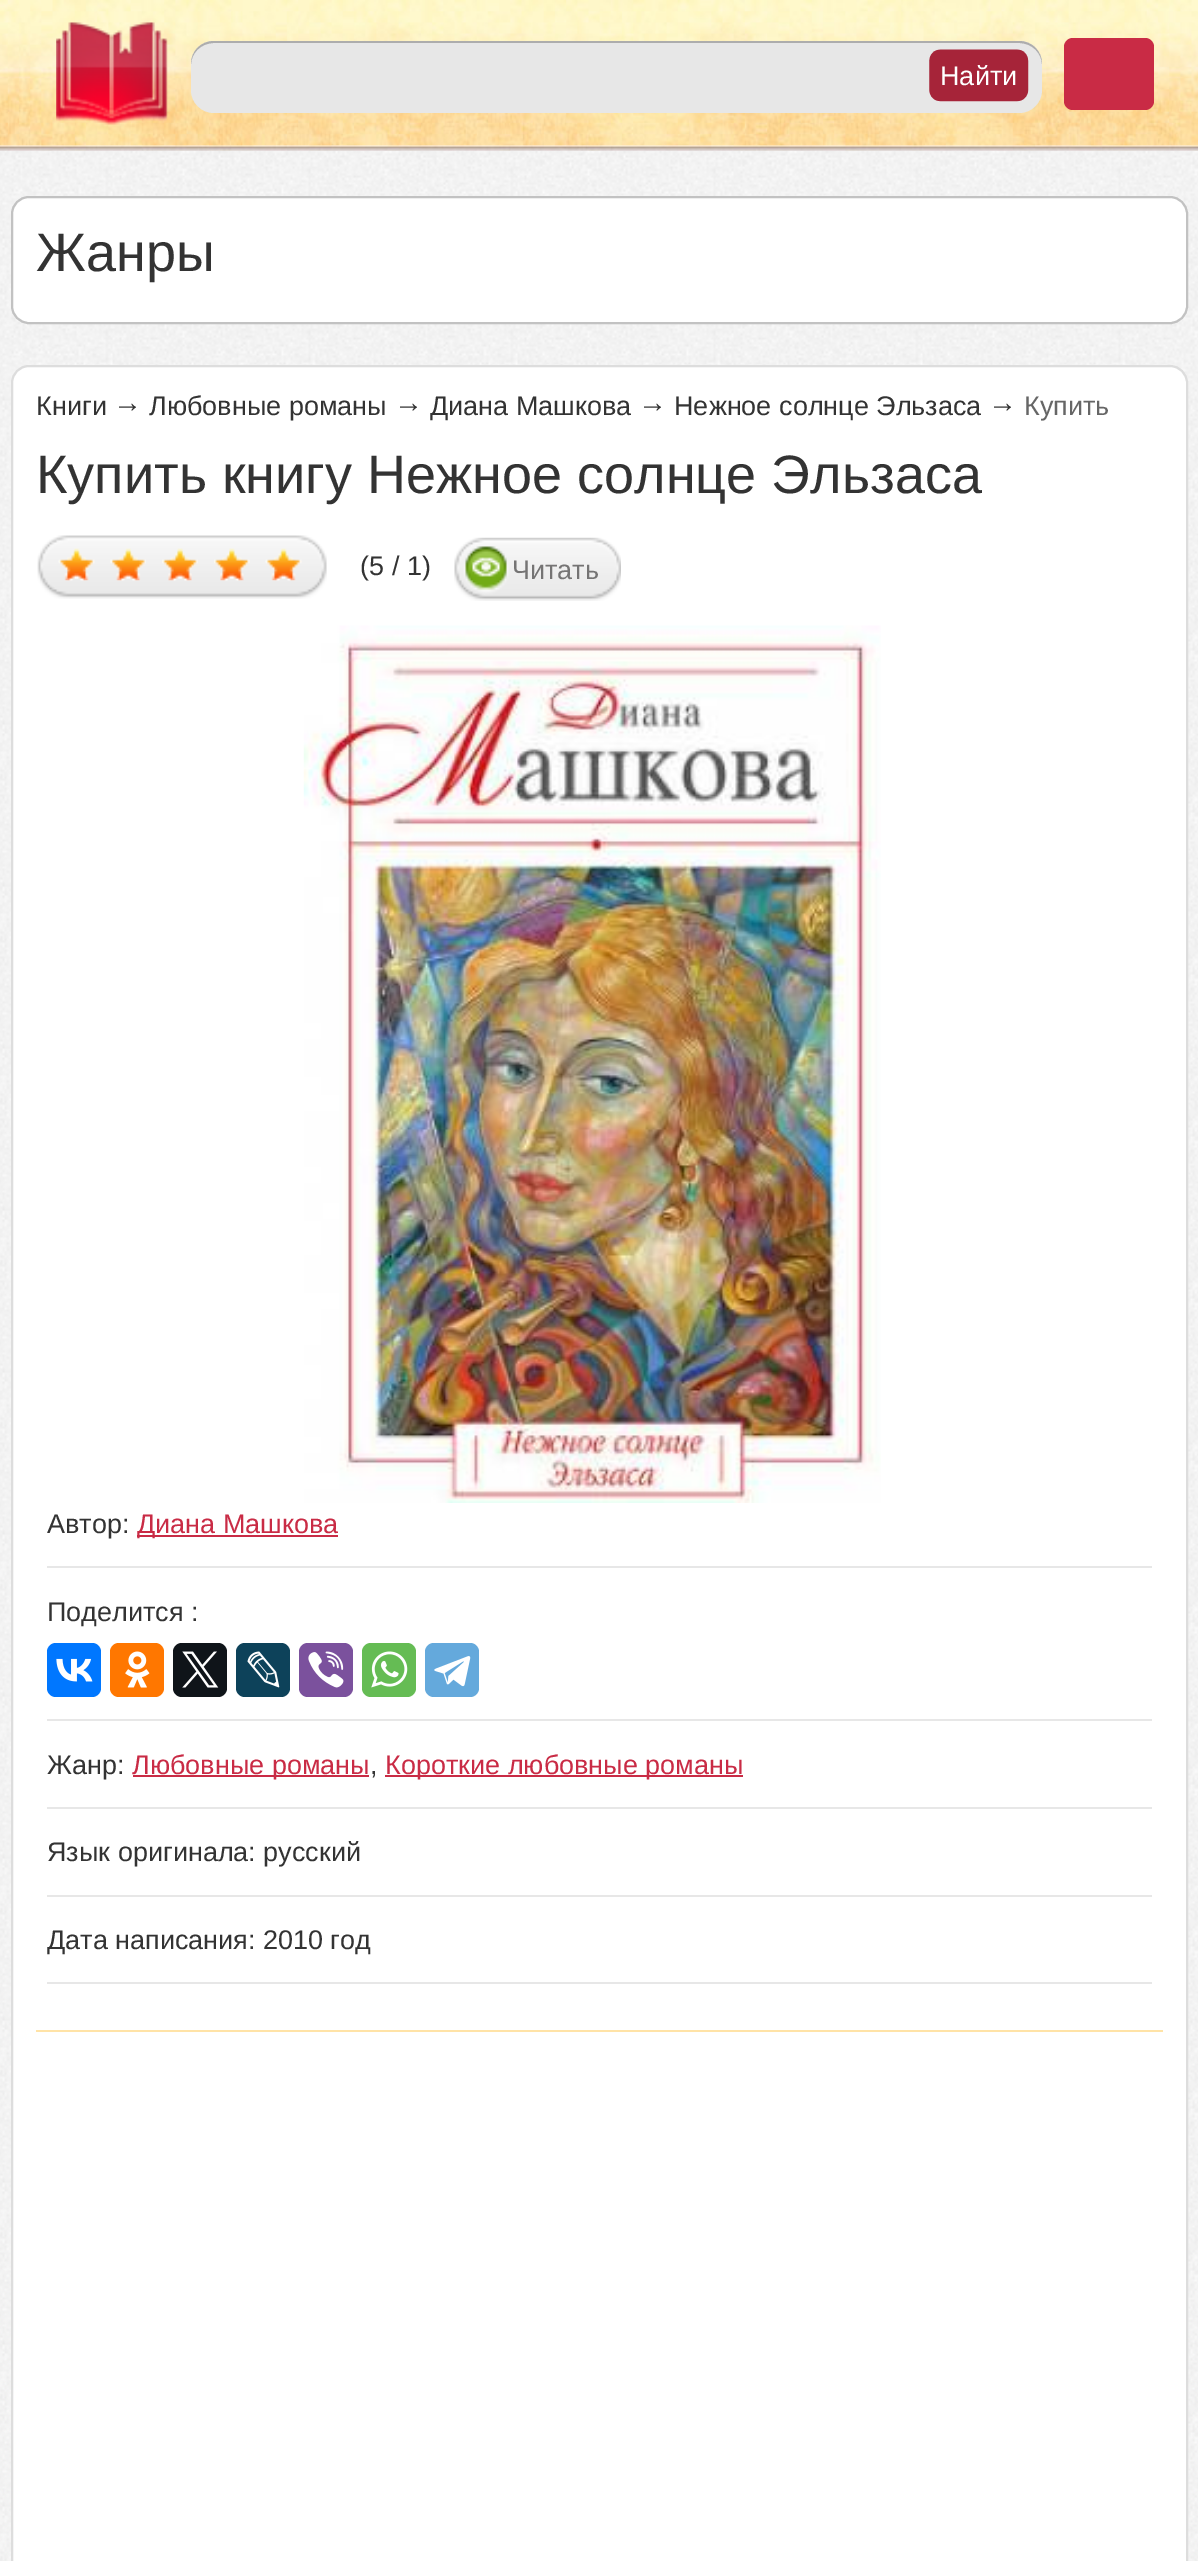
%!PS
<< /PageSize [1198 2561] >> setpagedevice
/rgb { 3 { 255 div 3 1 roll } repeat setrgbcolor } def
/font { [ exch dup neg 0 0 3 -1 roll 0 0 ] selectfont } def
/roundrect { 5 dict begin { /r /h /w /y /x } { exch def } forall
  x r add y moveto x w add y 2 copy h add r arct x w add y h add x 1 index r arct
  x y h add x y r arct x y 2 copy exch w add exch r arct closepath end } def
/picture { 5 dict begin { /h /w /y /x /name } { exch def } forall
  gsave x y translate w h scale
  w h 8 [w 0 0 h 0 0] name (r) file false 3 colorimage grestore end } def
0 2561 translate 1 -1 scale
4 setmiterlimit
255 255 255 rgb
0 0 1198 2561 rectfill
(img/1.rgb) 0 150 1198 2411 picture
(img/2.rgb) 0 0 1198 151 picture
(img/3.rgb) 56 22 112 103 picture
231 231 231 rgb
191 41 851 72 23 roundrect fill
173 173 173 rgb
214 43 moveto 1019 43 lineto 1032 43 1042 53 1042 65 curveto 1042 64 lineto 1042 51 1032 41 1019 41 curveto 214 41 lineto 201 41 191 51 191 64 curveto 191 65 lineto 191 53 201 43 214 43 curveto closepath fill
(img/4.rgb) 929 49 100 53 picture
201 43 69 rgb
1064 38 90 72 9 roundrect fill
255 255 255 rgb
12 197 1175 126 17 roundrect gsave fill grestore
194 194 194 rgb
2 setlinewidth
stroke
255 255 255 rgb
12 366 1175 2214 17 roundrect gsave fill grestore
221 221 221 rgb
stroke
255 227 167 rgb
36 2030 1127 2 rectfill
(img/5.rgb) 37 535 290 64 picture
(img/6.rgb) 58 551 37 30 picture
(img/7.rgb) 59 548 36 33 picture
(img/8.rgb) 110 551 36 30 picture
(img/9.rgb) 110 548 36 33 picture
(img/10.rgb) 162 551 36 30 picture
(img/11.rgb) 162 548 36 33 picture
(img/12.rgb) 214 551 36 30 picture
(img/13.rgb) 214 548 36 33 picture
(img/6.rgb) 265 551 37 30 picture
(img/7.rgb) 266 548 36 33 picture
(img/14.rgb) 454 537 167 64 picture
(img/15.rgb) 303 625 578 878 picture
[
  [47 1719 1105 2 231 231 231]
  [47 1566 1105 2 231 231 231]
  [137 1535 201 2 201 43 69]
] { aload pop rgb rectfill } forall
0 119 255 rgb
47 1643 54 54 9 roundrect fill
(img/16.rgb) 56 1658 37 24 picture
255 119 0 rgb
110 1643 54 54 9 roundrect fill
(img/17.rgb) 125 1651 25 37 picture
15 20 25 rgb
173 1643 54 54 9 roundrect fill
(img/18.rgb) 182 1651 37 37 picture
13 66 90 rgb
236 1643 54 54 9 roundrect fill
(img/19.rgb) 247 1651 33 37 picture
123 81 157 rgb
299 1643 54 54 9 roundrect fill
(img/20.rgb) 308 1651 36 37 picture
101 188 84 rgb
362 1643 54 54 9 roundrect fill
(img/21.rgb) 371 1651 37 37 picture
100 169 220 rgb
425 1643 54 54 9 roundrect fill
(img/22.rgb) 434 1656 37 31 picture
[
  [47 1807 1105 2 231 231 231]
  [133 1775 236 2 201 43 69]
  [385 1775 358 2 201 43 69]
  [47 1895 1105 2 231 231 231]
  [47 1982 1105 2 231 231 231]
] { aload pop rgb rectfill } forall
/LiberationSans-Regular 27 font
255 255 255 rgb
940 85 moveto (Найти) show
/LiberationSans-Regular 54 font
51 51 51 rgb
36 271 moveto (Жанры) show
/LiberationSans-Regular 27 font
36 415 moveto (Книги) show
/LiberationSans-Regular 29 font
113 412 moveto (→) show
/LiberationSans-Regular 27 font
149 415 moveto (Любовные романы) show
/LiberationSans-Regular 29 font
394 412 moveto (→) show
/LiberationSans-Regular 27 font
430 415 moveto (Диана Машкова) show
/LiberationSans-Regular 29 font
638 412 moveto (→) show
/LiberationSans-Regular 27 font
674 415 moveto (Нежное солнце Эльзаса) show
/LiberationSans-Regular 29 font
988 412 moveto (→) show
/LiberationSans-Regular 27 font
102 102 102 rgb
1024 415 moveto (Купить) show
/LiberationSans-Regular 54 font
51 51 51 rgb
36 493 moveto (Купить книгу Нежное солнце Эльзаса) show
/LiberationSans-Regular 27 font
360 575 moveto (\(5 / 1\)) show
117 116 116 rgb
512 579 moveto (Читать) show
51 51 51 rgb
47 1533 moveto (Автор:) show
201 43 69 rgb
137 1533 moveto (Диана Машкова) show
51 51 51 rgb
47 1621 moveto (Поделится :) show
47 1774 moveto (Жанр:) show
201 43 69 rgb
132 1774 moveto (Любовные романы) show
51 51 51 rgb
370 1774 moveto (,) show
201 43 69 rgb
385 1774 moveto (Короткие любовные романы) show
51 51 51 rgb
47 1861 moveto (Язык оригинала: русский) show
47 1949 moveto (Дата написания: 2010 год) show
showpage
